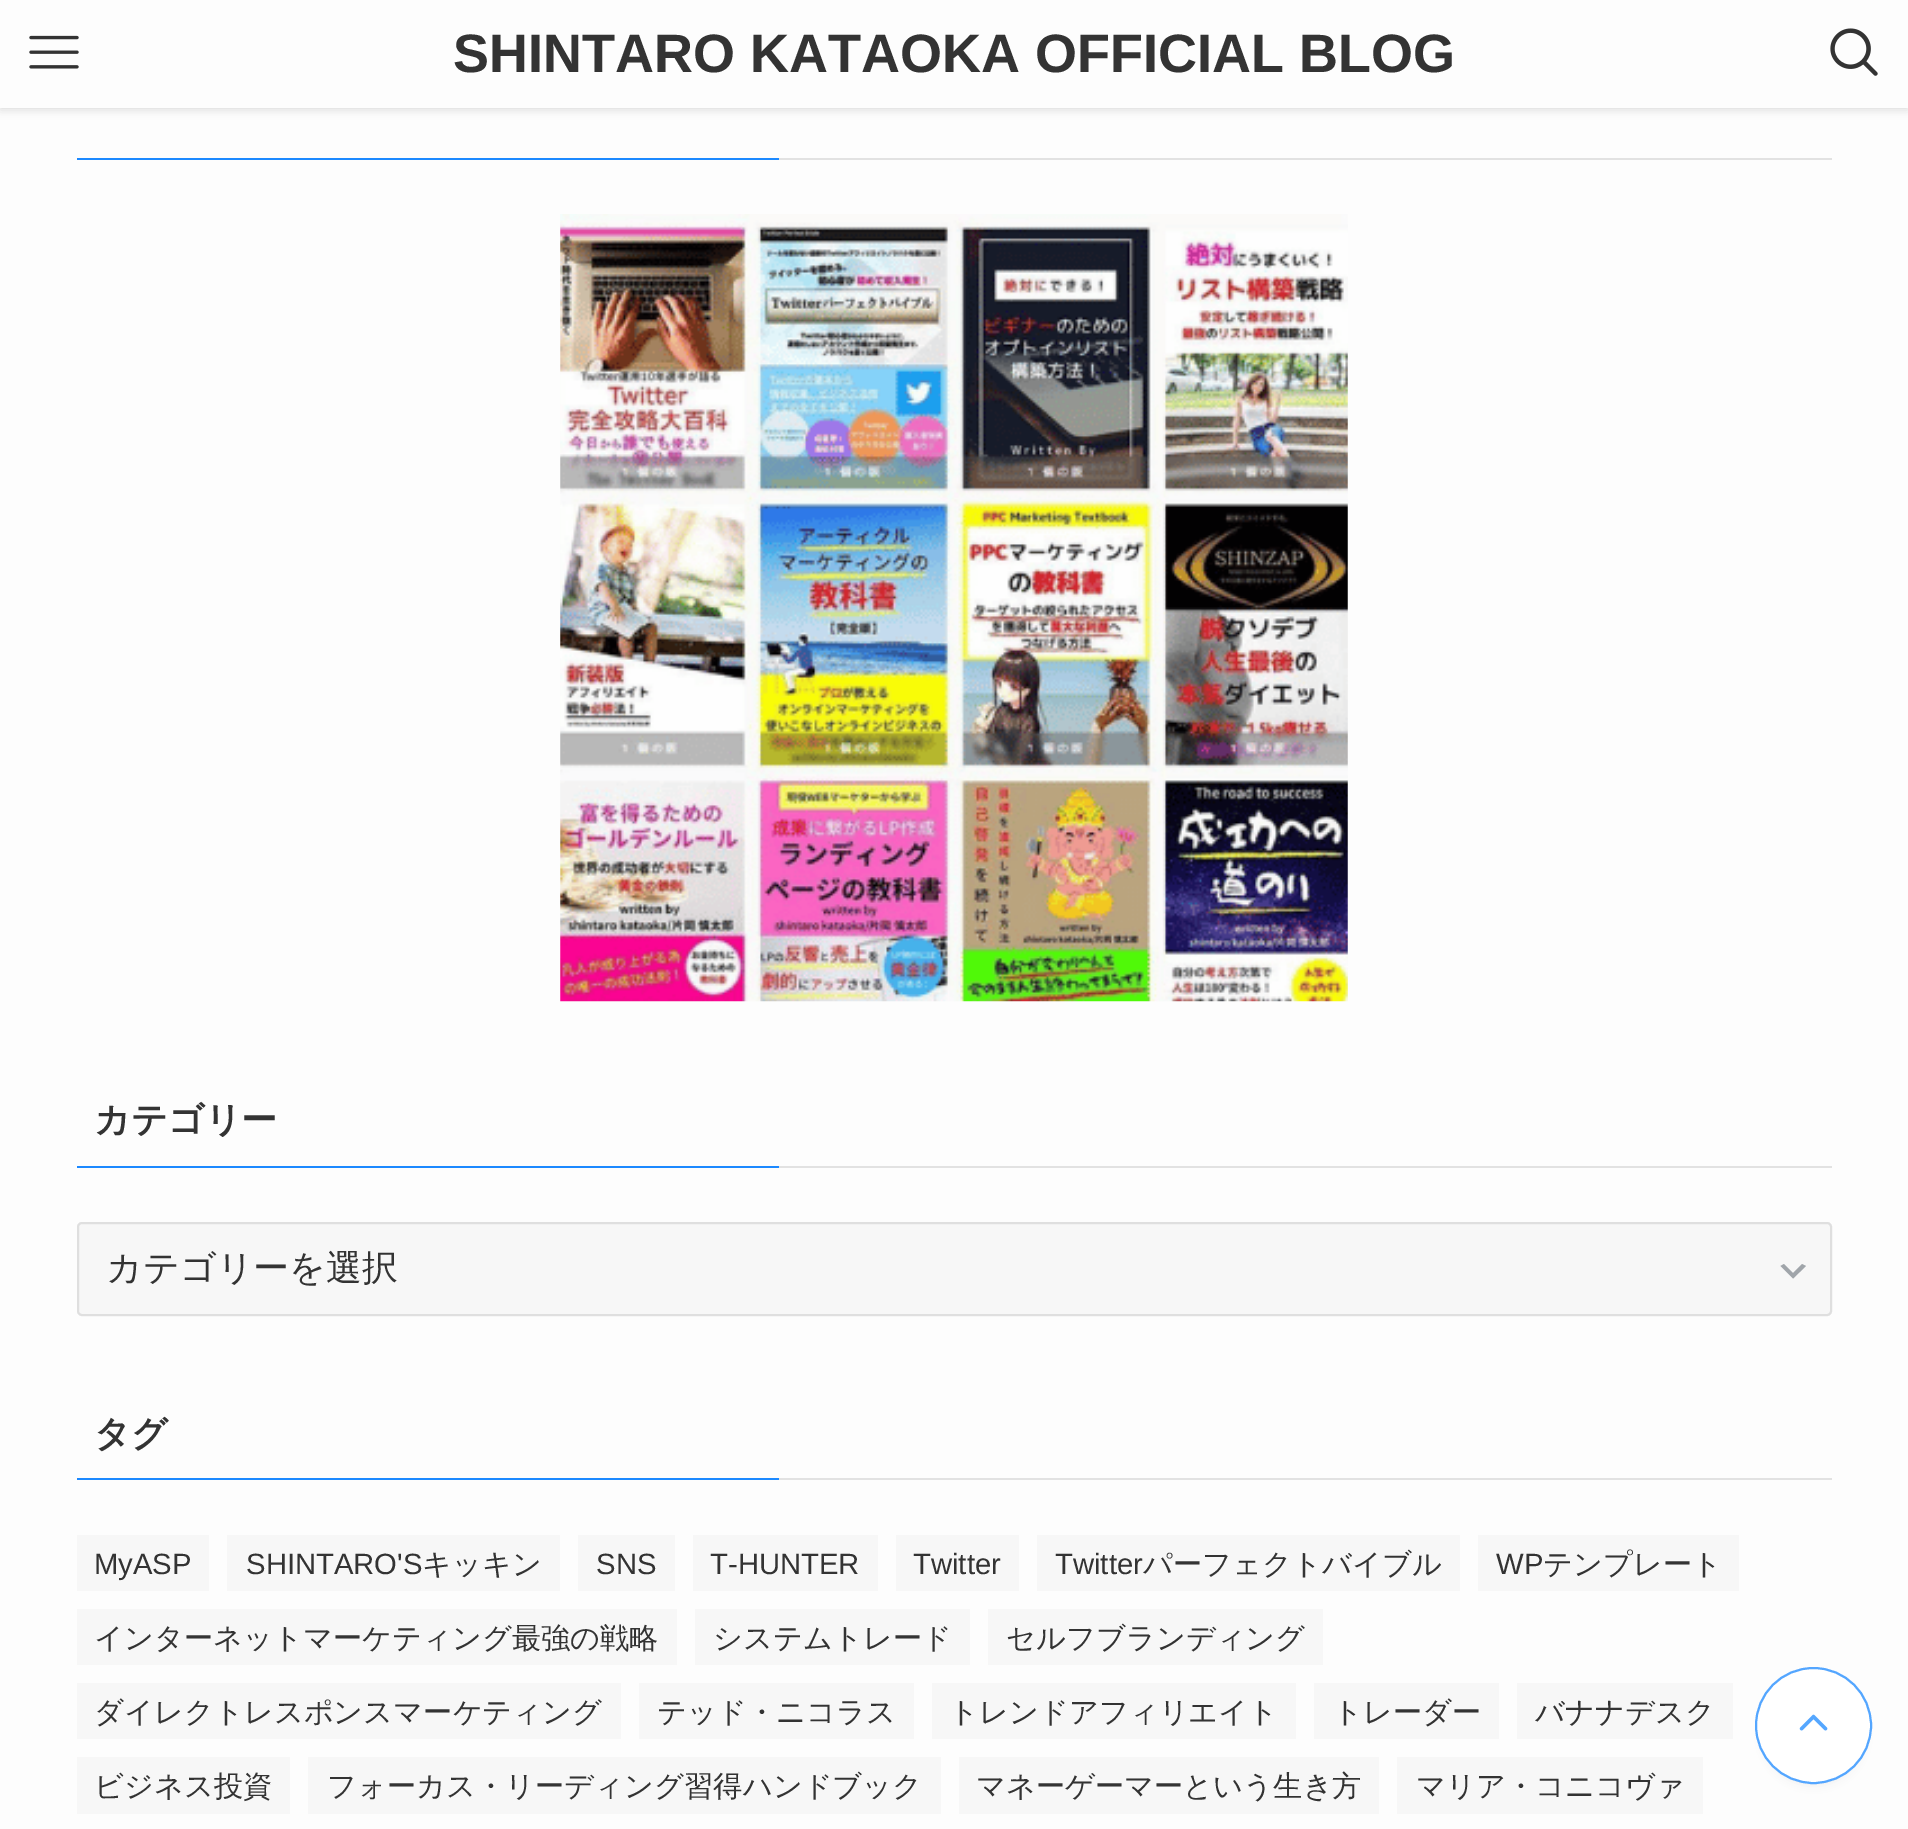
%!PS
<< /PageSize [1908 1829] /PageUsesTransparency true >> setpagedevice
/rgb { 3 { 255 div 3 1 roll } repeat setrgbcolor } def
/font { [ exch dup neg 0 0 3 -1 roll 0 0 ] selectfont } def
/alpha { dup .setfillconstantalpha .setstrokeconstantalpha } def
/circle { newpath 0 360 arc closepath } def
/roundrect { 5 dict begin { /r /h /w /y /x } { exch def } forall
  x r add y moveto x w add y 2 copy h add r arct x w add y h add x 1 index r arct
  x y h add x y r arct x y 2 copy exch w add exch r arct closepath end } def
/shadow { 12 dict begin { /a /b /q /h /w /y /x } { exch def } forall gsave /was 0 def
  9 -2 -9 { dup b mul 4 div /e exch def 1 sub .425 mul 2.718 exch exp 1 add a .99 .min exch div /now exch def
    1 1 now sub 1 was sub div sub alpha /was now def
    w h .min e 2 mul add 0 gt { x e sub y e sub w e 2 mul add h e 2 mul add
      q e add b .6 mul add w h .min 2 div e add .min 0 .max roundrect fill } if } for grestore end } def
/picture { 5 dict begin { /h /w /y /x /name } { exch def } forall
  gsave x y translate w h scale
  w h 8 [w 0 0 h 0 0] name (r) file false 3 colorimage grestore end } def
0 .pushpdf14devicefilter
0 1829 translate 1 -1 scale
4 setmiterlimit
253 253 253 rgb
0 0 1908 1829 rectfill
0 0 0 rgb
0 2 1908 108 0 4.5 0.12 shadow
253 253 253 rgb
0 0 1908 108 rectfill
(img/1.rgb) 29 35 50 34 picture
(img/2.rgb) 1830 28 48 48 picture
28 137 255 rgb
77 158 702 2 rectfill
226 226 226 rgb
779 158 1053 2 rectfill
(img/3.rgb) 560 214 788 788 picture
28 137 255 rgb
77 1166 702 2 rectfill
226 226 226 rgb
779 1166 1053 2 rectfill
247 247 247 rgb
77 1222 1755 94 5 roundrect fill
160 165 170 rgb
1784 1264 moveto 1793 1273 lineto 1802 1264 lineto 1806 1266 lineto 1793 1278.5 lineto 1780.5 1266 lineto closepath fill
0.5 alpha
199 199 199 rgb
2 setlinewidth
78 1223 1753 92 4 roundrect stroke
1 alpha
[
  [77 1478 702 2 28 137 255]
  [779 1478 1053 2 226 226 226]
  [77 1535 132 56 247 247 247]
  [227 1535 333 56 247 247 247]
  [578 1535 97 56 247 247 247]
  [693 1535 185 56 247 247 247]
  [896 1535 123 56 247 247 247]
  [1037 1535 423 56 247 247 247]
  [1478 1535 261 56 247 247 247]
  [77 1609 600 56 247 247 247]
  [695 1609 275 56 247 247 247]
  [988 1609 335 56 247 247 247]
  [77 1683 544 56 247 247 247]
  [639 1683 275 56 247 247 247]
  [932 1683 364 56 247 247 247]
  [1314 1683 185 56 247 247 247]
  [1517 1683 216 56 247 247 247]
  [77 1757 213 57 247 247 247]
  [308 1757 633 57 247 247 247]
  [959 1757 420 57 247 247 247]
  [1397 1757 306 57 247 247 247]
] { aload pop rgb rectfill } forall
63 63 63 rgb
1764 1685 99 99 49.5 4.5 0.1 shadow
255 255 255 rgb
1813.5 1725.5 57.5 circle gsave fill grestore
84 166 255 rgb
stroke
(img/4.rgb) 1799 1714 29 17 picture
/LiberationSans-Bold 54 font
51 51 51 rgb
453 72 moveto (SHINTARO KATAOKA OFFICIAL BLOG) show
/WenQuanYiZenHei-Bold 36 font
94 1132 moveto (カテゴリー) show
/WenQuanYiZenHei-Medium 36 font
106 1280 moveto (カテゴリーを選択) show
/WenQuanYiZenHei-Bold 36 font
94 1446 moveto (タグ) show
/LiberationSans-Regular 29.25 font
94 1574 moveto (MyASP) show
246 1574 moveto (SHINTARO'S) show
/WenQuanYiZenHei-Medium 29.25 font
422 1574 moveto (キッキン) show
/LiberationSans-Regular 29.25 font
[
  [(SNS) 596 1574]
  [(T-HUNTER) 710 1574]
  [(Twitter) 913 1574]
  [(Twitter) 1055 1574]
] { aload pop moveto show } forall
/WenQuanYiZenHei-Medium 29.25 font
1143 1574 moveto (パーフェクトバイブル) show
/LiberationSans-Regular 29.25 font
1496 1574 moveto (WP) show
/WenQuanYiZenHei-Medium 29.25 font
[
  [(テンプレート) 1543 1574]
  [(インターネットマーケティング最強の戦略) 94 1648]
  [(システムトレード) 713 1648]
  [(セルフブランディング) 1006 1648]
  [(ダイレクトレスポンスマーケティング) 94 1722]
  [(テッド・ニコラス) 657 1722]
  [(トレンドアフィリエイト) 949 1722]
  [(トレーダー) 1333 1722]
  [(バナナデスク) 1535 1722]
  [(ビジネス投資) 94 1796]
  [(フォーカス・リーディング習得ハンドブック) 327 1796]
  [(マネーゲーマーという生き方) 976 1796]
  [(マリア・コニコヴァ) 1416 1796]
] { aload pop moveto show } forall
.poppdf14devicefilter showpage
